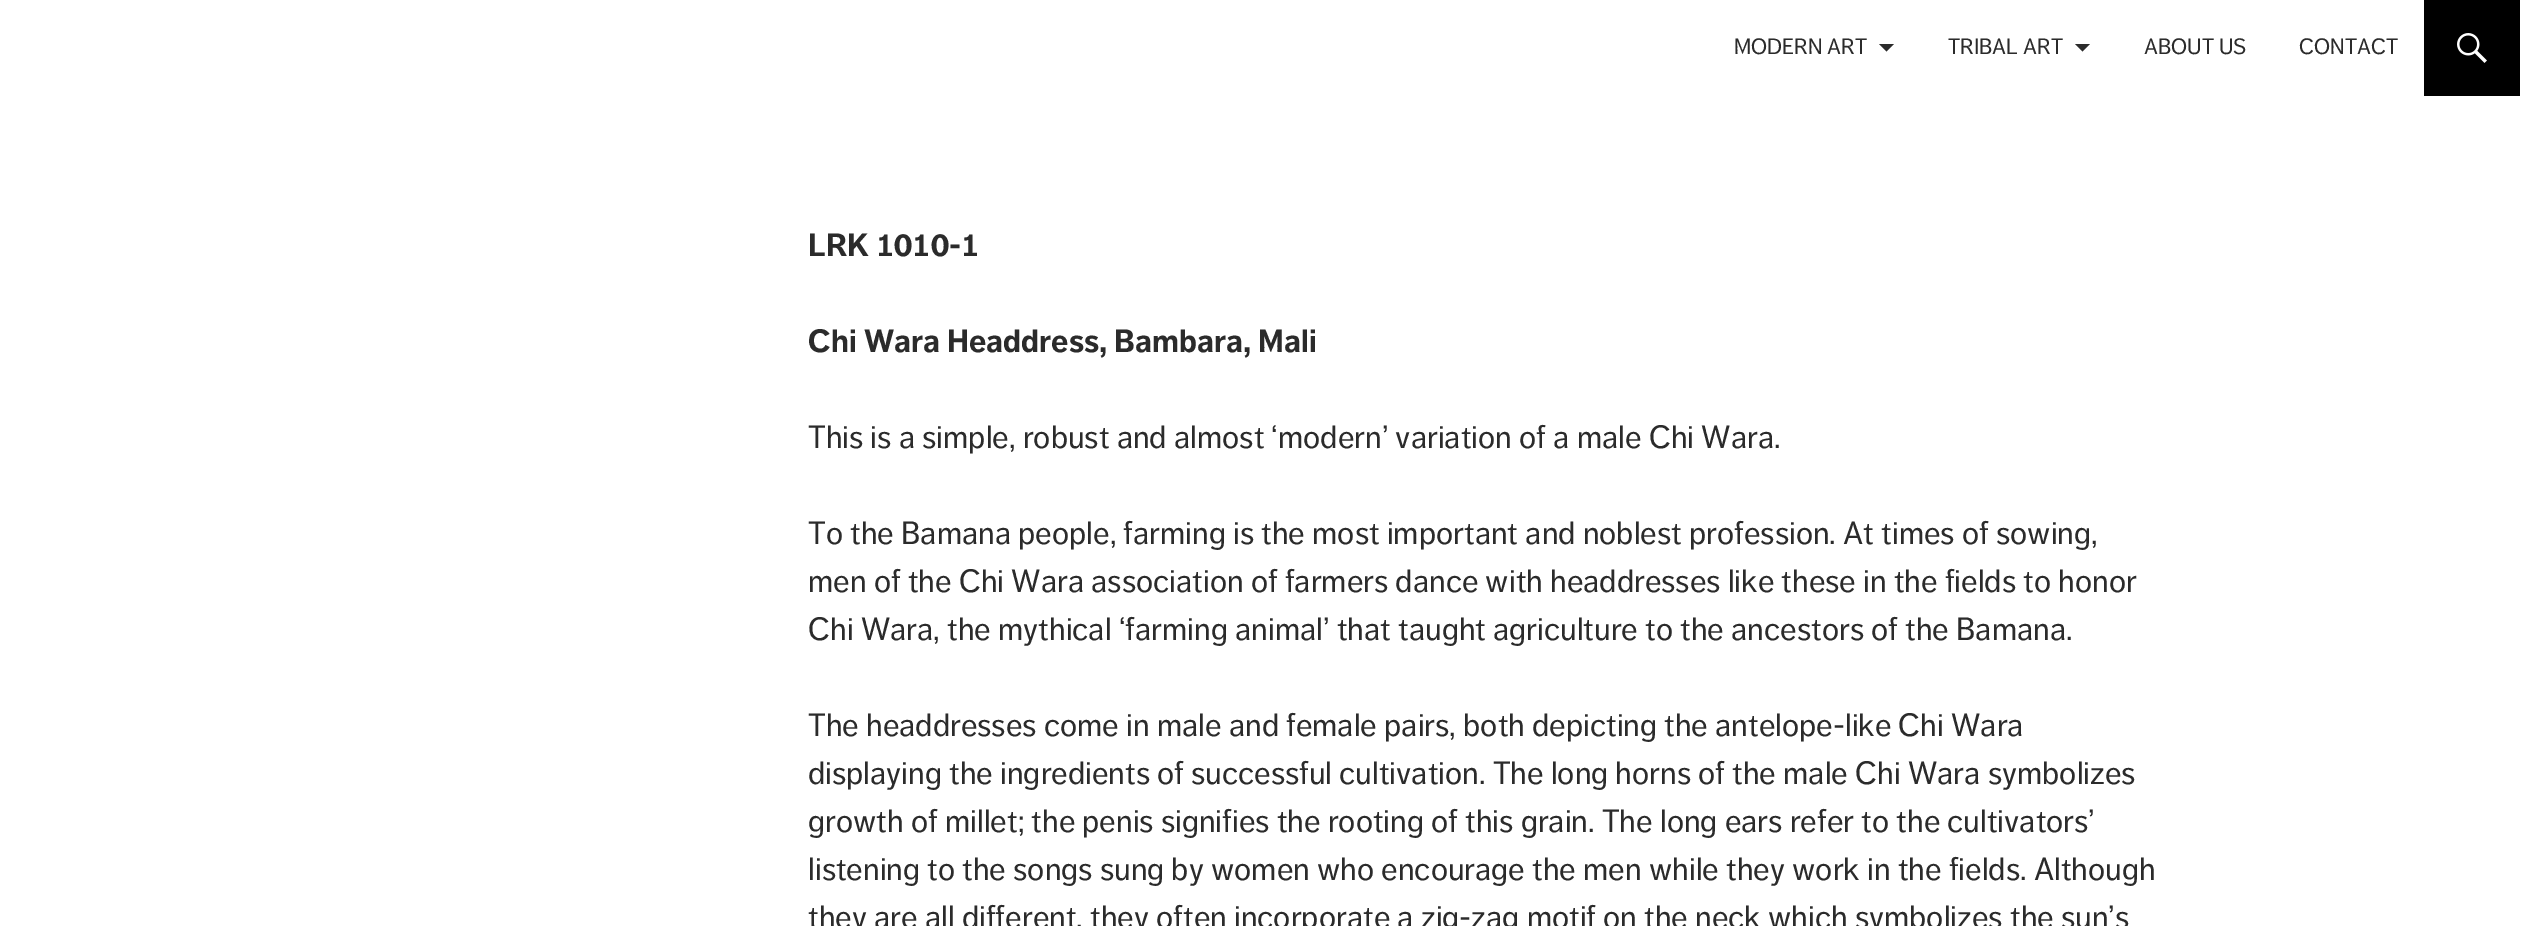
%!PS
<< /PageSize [2524 926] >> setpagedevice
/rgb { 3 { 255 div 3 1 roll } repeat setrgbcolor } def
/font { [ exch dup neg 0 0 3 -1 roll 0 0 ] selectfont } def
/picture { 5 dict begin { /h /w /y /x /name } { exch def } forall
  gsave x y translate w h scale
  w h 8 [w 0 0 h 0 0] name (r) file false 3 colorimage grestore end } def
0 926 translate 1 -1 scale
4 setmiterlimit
255 255 255 rgb
0 0 2524 926 rectfill
43 43 43 rgb
1879 44 moveto 1886.5 51.5 lineto 1894 44 lineto closepath fill
2075 44 moveto 2082.5 51.5 lineto 2090 44 lineto closepath fill
0 0 0 rgb
2424 0 96 96 rectfill
(img/1.rgb) 2457 33 30 30 picture
/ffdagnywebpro-Regular 22 font
43 43 43 rgb
[
  [(MODERN ART) 1734 54]
  [(TRIBAL ART) 1948 54]
  [(ABOUT US) 2144 54]
  [(CONTACT) 2299 54]
] { aload pop moveto show } forall
/ffdagnywebpro-Bold 32 font
808 256 moveto (LRK 1010-1) show
808 352 moveto (Chi Wara Headdress, Bambara, Mali) show
/ffdagnywebpro-Regular 32 font
[
  [(This is a simple, robust and almost ‘modern’ variation of a male Chi Wara.) 808 448]
  [(To the Bamana people, farming is the most important and noblest profession. At times of sowing,) 808 544]
  [(men of the Chi Wara association of farmers dance with headdresses like these in the fields to honor) 808 592]
  [(Chi Wara, the mythical ‘farming animal’ that taught agriculture to the ancestors of the Bamana.) 808 640]
  [(The headdresses come in male and female pairs, both depicting the antelope-like Chi Wara) 808 736]
  [(displaying the ingredients of successful cultivation. The long horns of the male Chi Wara symbolizes) 808 784]
  [(growth of millet; the penis signifies the rooting of this grain. The long ears refer to the cultivators’) 808 832]
  [(listening to the songs sung by women who encourage the men while they work in the fields. Although) 808 880]
  [(they are all different, they often incorporate a zig-zag motif on the neck which symbolizes the sun’s) 808 928]
] { aload pop moveto show } forall
showpage
